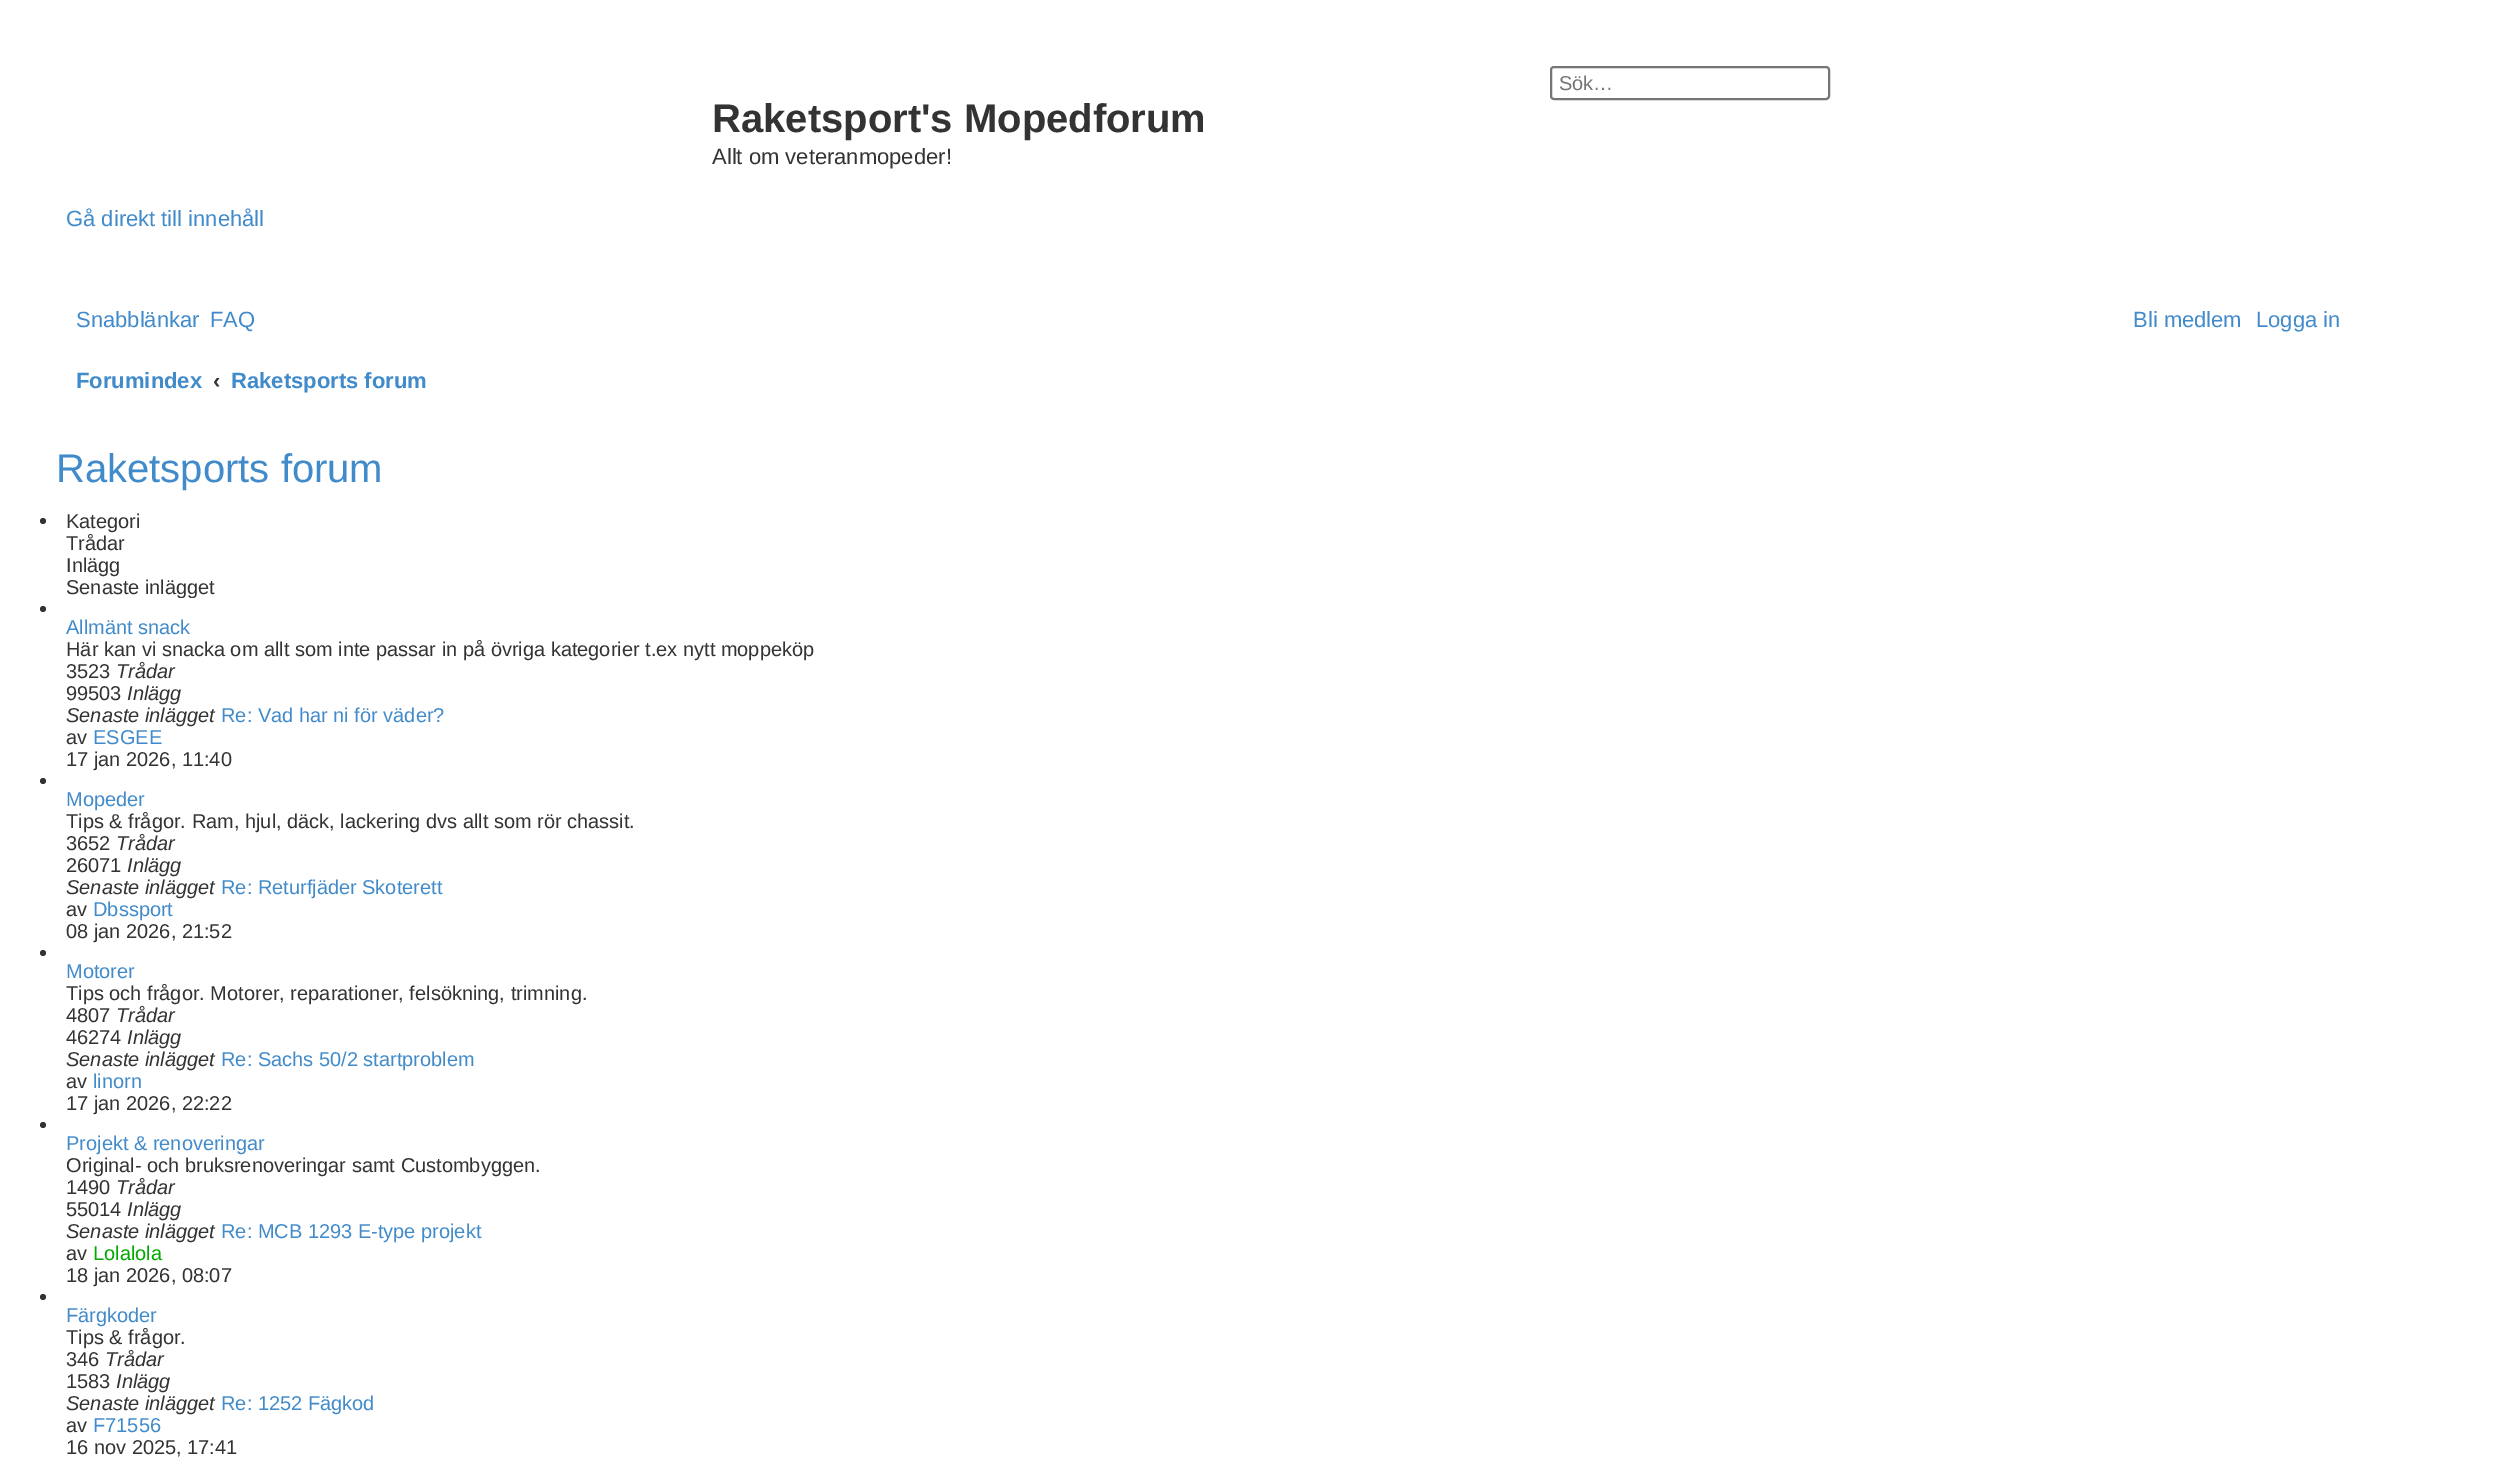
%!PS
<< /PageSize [2505 1457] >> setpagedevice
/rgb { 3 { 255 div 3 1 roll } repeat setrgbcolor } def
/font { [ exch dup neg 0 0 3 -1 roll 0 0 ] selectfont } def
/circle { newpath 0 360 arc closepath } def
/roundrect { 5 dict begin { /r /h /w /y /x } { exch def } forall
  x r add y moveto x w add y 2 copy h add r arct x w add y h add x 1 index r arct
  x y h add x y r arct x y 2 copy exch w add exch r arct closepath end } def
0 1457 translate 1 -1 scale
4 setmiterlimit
255 255 255 rgb
0 0 2505 1457 rectfill
118 118 118 rgb
2 setlinewidth
1551 67 278 32 3 roundrect stroke
51 51 51 rgb
43 521 3 circle fill
43 609 3 circle fill
43 781 3 circle fill
43 953 3 circle fill
43 1125 3 circle fill
43 1297 3 circle fill
/LiberationSans-Regular 20 font
117 117 117 rgb
1559 90 moveto (Sök…) show
/LiberationSans-Bold 40 font
51 51 51 rgb
712 132 moveto (Raketsport's Mopedforum) show
/LiberationSans-Regular 22 font
712 164 moveto (Allt om veteranmopeder!) show
66 139 202 rgb
[
  [(Gå direkt till innehåll) 66 226]
  [(Snabblänkar) 76 327]
  [(FAQ) 210 327]
  [(Bli medlem) 2133 327]
  [(Logga in) 2256 327]
] { aload pop moveto show } forall
/LiberationSans-Bold 22 font
76 388 moveto (Forumindex) show
51 51 51 rgb
213 388 moveto (‹) show
66 139 202 rgb
231 388 moveto (Raketsports forum) show
/LiberationSans-Regular 40 font
56 482 moveto (Raketsports forum) show
/LiberationSans-Regular 20 font
51 51 51 rgb
[
  [(Kategori) 66 528]
  [(Trådar) 66 550]
  [(Inlägg) 66 572]
] { aload pop moveto show } forall
gsave
66 510 2284 88 rectclip
66 594 moveto (Senaste inlägget) show
grestore
66 139 202 rgb
66 634 moveto (Allmänt snack) show
51 51 51 rgb
66 656 moveto (Här kan vi snacka om allt som inte passar in på övriga kategorier t.ex nytt moppeköp) show
66 678 moveto (3523) show
/LiberationSans-Italic 20 font
116 678 moveto (Trådar) show
/LiberationSans-Regular 20 font
66 700 moveto (99503) show
/LiberationSans-Italic 20 font
127 700 moveto (Inlägg) show
66 722 moveto (Senaste inlägget) show
/LiberationSans-Regular 20 font
66 139 202 rgb
221 722 moveto (Re: Vad har ni för väder?) show
51 51 51 rgb
66 744 moveto (av) show
66 139 202 rgb
93 744 moveto (ESGEE) show
51 51 51 rgb
66 766 moveto (17 jan 2026, 11:40) show
66 139 202 rgb
66 806 moveto (Mopeder) show
51 51 51 rgb
66 828 moveto (Tips & frågor. Ram, hjul, däck, lackering dvs allt som rör chassit.) show
66 850 moveto (3652) show
/LiberationSans-Italic 20 font
116 850 moveto (Trådar) show
/LiberationSans-Regular 20 font
66 872 moveto (26071) show
/LiberationSans-Italic 20 font
127 872 moveto (Inlägg) show
66 894 moveto (Senaste inlägget) show
/LiberationSans-Regular 20 font
66 139 202 rgb
221 894 moveto (Re: Returfjäder Skoterett) show
51 51 51 rgb
66 916 moveto (av) show
66 139 202 rgb
93 916 moveto (Dbssport) show
51 51 51 rgb
66 938 moveto (08 jan 2026, 21:52) show
66 139 202 rgb
66 978 moveto (Motorer) show
51 51 51 rgb
66 1000 moveto (Tips och frågor. Motorer, reparationer, felsökning, trimning.) show
66 1022 moveto (4807) show
/LiberationSans-Italic 20 font
116 1022 moveto (Trådar) show
/LiberationSans-Regular 20 font
66 1044 moveto (46274) show
/LiberationSans-Italic 20 font
127 1044 moveto (Inlägg) show
66 1066 moveto (Senaste inlägget) show
/LiberationSans-Regular 20 font
66 139 202 rgb
221 1066 moveto (Re: Sachs 50/2 startproblem) show
51 51 51 rgb
66 1088 moveto (av) show
66 139 202 rgb
93 1088 moveto (linorn) show
51 51 51 rgb
66 1110 moveto (17 jan 2026, 22:22) show
66 139 202 rgb
66 1150 moveto (Projekt & renoveringar) show
51 51 51 rgb
66 1172 moveto (Original- och bruksrenoveringar samt Custombyggen.) show
66 1194 moveto (1490) show
/LiberationSans-Italic 20 font
116 1194 moveto (Trådar) show
/LiberationSans-Regular 20 font
66 1216 moveto (55014) show
/LiberationSans-Italic 20 font
127 1216 moveto (Inlägg) show
66 1238 moveto (Senaste inlägget) show
/LiberationSans-Regular 20 font
66 139 202 rgb
221 1238 moveto (Re: MCB 1293 E-type projekt) show
51 51 51 rgb
66 1260 moveto (av) show
0 170 0 rgb
93 1260 moveto (Lolalola) show
51 51 51 rgb
66 1282 moveto (18 jan 2026, 08:07) show
66 139 202 rgb
66 1322 moveto (Färgkoder) show
51 51 51 rgb
66 1344 moveto (Tips & frågor.) show
66 1366 moveto (346) show
/LiberationSans-Italic 20 font
105 1366 moveto (Trådar) show
/LiberationSans-Regular 20 font
66 1388 moveto (1583) show
/LiberationSans-Italic 20 font
116 1388 moveto (Inlägg) show
66 1410 moveto (Senaste inlägget) show
/LiberationSans-Regular 20 font
66 139 202 rgb
221 1410 moveto (Re: 1252 Fägkod) show
51 51 51 rgb
66 1432 moveto (av) show
66 139 202 rgb
93 1432 moveto (F71556) show
51 51 51 rgb
66 1454 moveto (16 nov 2025, 17:41) show
showpage
